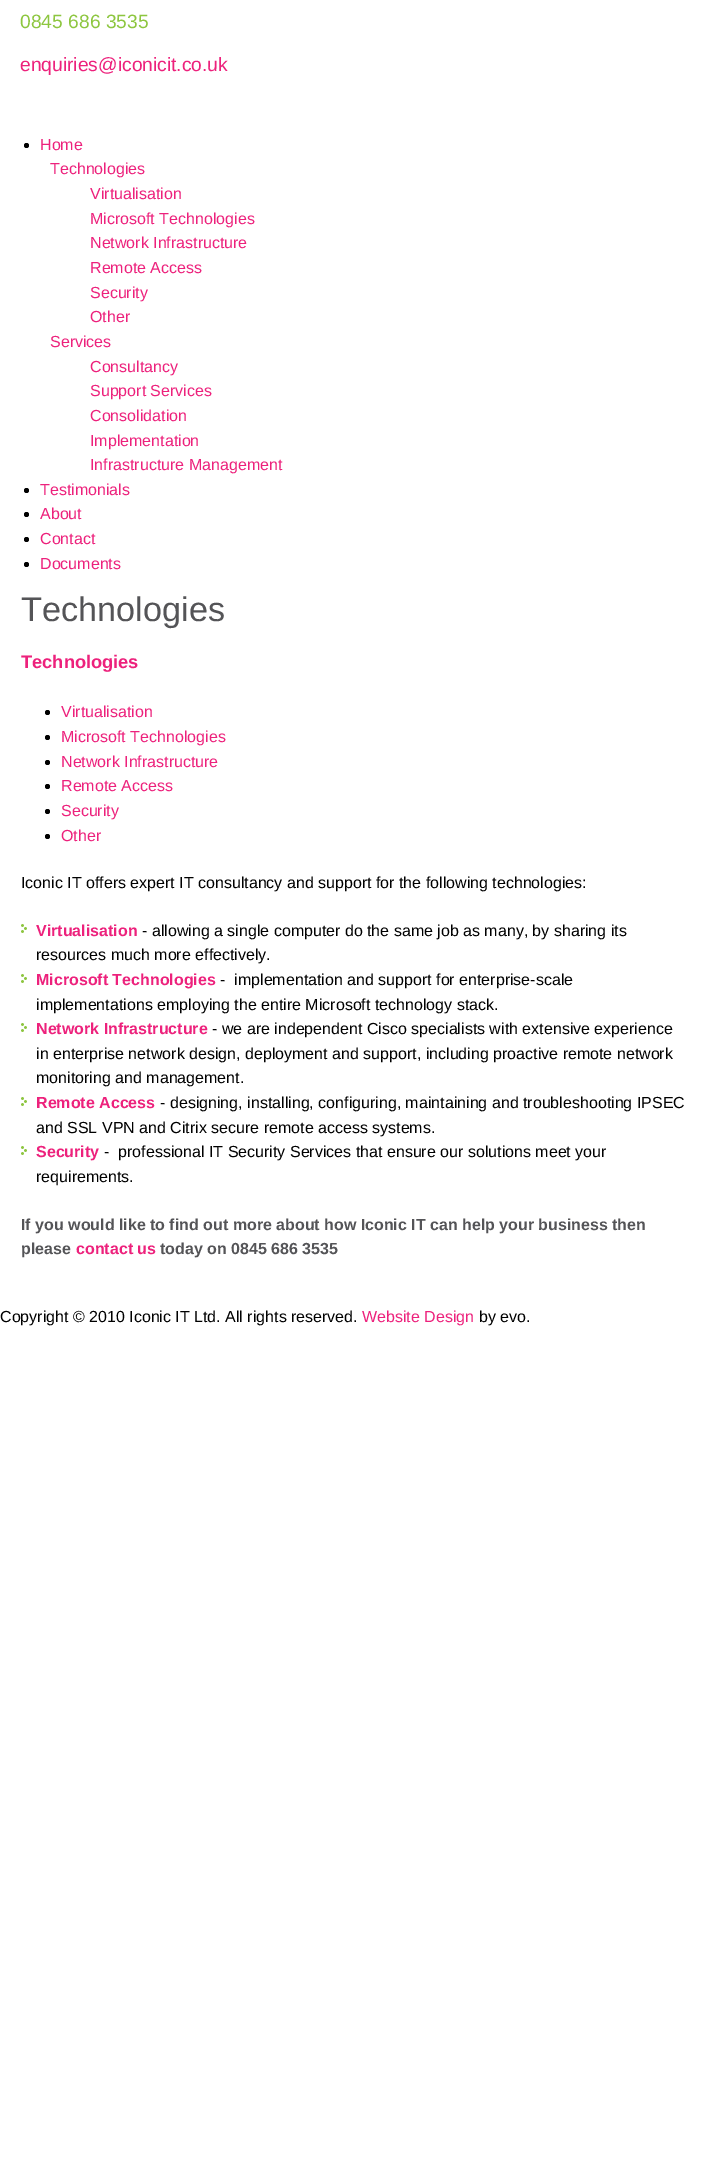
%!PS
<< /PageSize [708 2179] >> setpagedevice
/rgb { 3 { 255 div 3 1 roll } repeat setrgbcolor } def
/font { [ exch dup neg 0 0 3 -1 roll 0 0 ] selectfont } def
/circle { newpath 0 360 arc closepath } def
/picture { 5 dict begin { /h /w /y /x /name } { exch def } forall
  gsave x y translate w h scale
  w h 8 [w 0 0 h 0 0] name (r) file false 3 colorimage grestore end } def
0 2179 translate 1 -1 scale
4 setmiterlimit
255 255 255 rgb
0 0 708 2179 rectfill
0 0 0 rgb
26.5 145.5 2.5 circle fill
26.5 490.5 2.5 circle fill
26.5 514.5 2.5 circle fill
26.5 539.5 2.5 circle fill
26.5 564.5 2.5 circle fill
47.5 712.5 2.5 circle fill
47.5 737.5 2.5 circle fill
47.5 762.5 2.5 circle fill
47.5 786.5 2.5 circle fill
47.5 811.5 2.5 circle fill
47.5 836.5 2.5 circle fill
(img/1.rgb) 21 924 6 9 picture
(img/1.rgb) 21 974 6 9 picture
(img/1.rgb) 21 1023 6 9 picture
(img/1.rgb) 21 1097 6 9 picture
(img/1.rgb) 21 1146 6 9 picture
/LiberationSans-Regular 19.25 font
141 198 63 rgb
20 28 moveto (0845 686 3535) show
237 33 124 rgb
20 71 moveto (enquiries@iconicit.co.uk) show
/LiberationSans-Regular 16 font
[
  [(Home) 40 150]
  [(Technologies) 50 174]
  [(Virtualisation) 90 199]
  [(Microsoft Technologies) 90 224]
  [(Network Infrastructure) 90 248]
  [(Remote Access) 90 273]
  [(Security) 90 298]
  [(Other) 90 322]
  [(Services) 50 347]
  [(Consultancy) 90 372]
  [(Support Services) 90 396]
  [(Consolidation) 90 421]
  [(Implementation) 90 446]
  [(Infrastructure Management) 90 470]
  [(Testimonials) 40 495]
  [(About) 40 519]
  [(Contact) 40 544]
  [(Documents) 40 569]
] { aload pop moveto show } forall
/LiberationSans-Regular 34.25 font
84 84 87 rgb
21 621 moveto (Technologies) show
/LiberationSans-Bold 18.25 font
237 33 124 rgb
21 668 moveto (Technologies) show
/LiberationSans-Regular 16 font
[
  [(Virtualisation) 61 717]
  [(Microsoft Technologies) 61 742]
  [(Network Infrastructure) 61 767]
  [(Remote Access) 61 791]
  [(Security) 61 816]
  [(Other) 61 841]
] { aload pop moveto show } forall
0 0 0 rgb
21 888 moveto (Iconic IT offers expert IT consultancy and support for the following technologies:) show
/LiberationSans-Bold 16 font
237 33 124 rgb
36 936 moveto (Virtualisation) show
/LiberationSans-Regular 16 font
0 0 0 rgb
142 936 moveto (- allowing a single computer do the same job as many, by sharing its) show
36 960 moveto (resources much more effectively.) show
/LiberationSans-Bold 16 font
237 33 124 rgb
36 985 moveto (Microsoft Technologies) show
/LiberationSans-Regular 16 font
0 0 0 rgb
220 985 moveto (-  implementation and support for enterprise-scale) show
36 1010 moveto (implementations employing the entire Microsoft technology stack.) show
/LiberationSans-Bold 16 font
237 33 124 rgb
36 1034 moveto (Network Infrastructure) show
/LiberationSans-Regular 16 font
0 0 0 rgb
[
  [(- we are independent Cisco specialists with extensive experience) 212 1034]
  [(in enterprise network design, deployment and support, including proactive remote network) 36 1059]
  [(monitoring and management.) 36 1083]
] { aload pop moveto show } forall
/LiberationSans-Bold 16 font
237 33 124 rgb
36 1108 moveto (Remote Access) show
/LiberationSans-Regular 16 font
0 0 0 rgb
160 1108 moveto (- designing, installing, configuring, maintaining and troubleshooting IPSEC) show
36 1133 moveto (and SSL VPN and Citrix secure remote access systems.) show
/LiberationSans-Bold 16 font
237 33 124 rgb
36 1157 moveto (Security) show
/LiberationSans-Regular 16 font
0 0 0 rgb
104 1157 moveto (-  professional IT Security Services that ensure our solutions meet your) show
36 1182 moveto (requirements.) show
/LiberationSans-Bold 16 font
84 84 87 rgb
21 1230 moveto (If you would like to find out more about how Iconic IT can help your business then) show
21 1254 moveto (please) show
237 33 124 rgb
76 1254 moveto (contact us) show
84 84 87 rgb
160 1254 moveto (today on 0845 686 3535) show
/LiberationSans-Regular 16 font
0 0 0 rgb
0 1322 moveto (Copyright © 2010 Iconic IT Ltd. All rights reserved.) show
237 33 124 rgb
362 1322 moveto (Website Design) show
0 0 0 rgb
479 1322 moveto (by evo.) show
showpage
